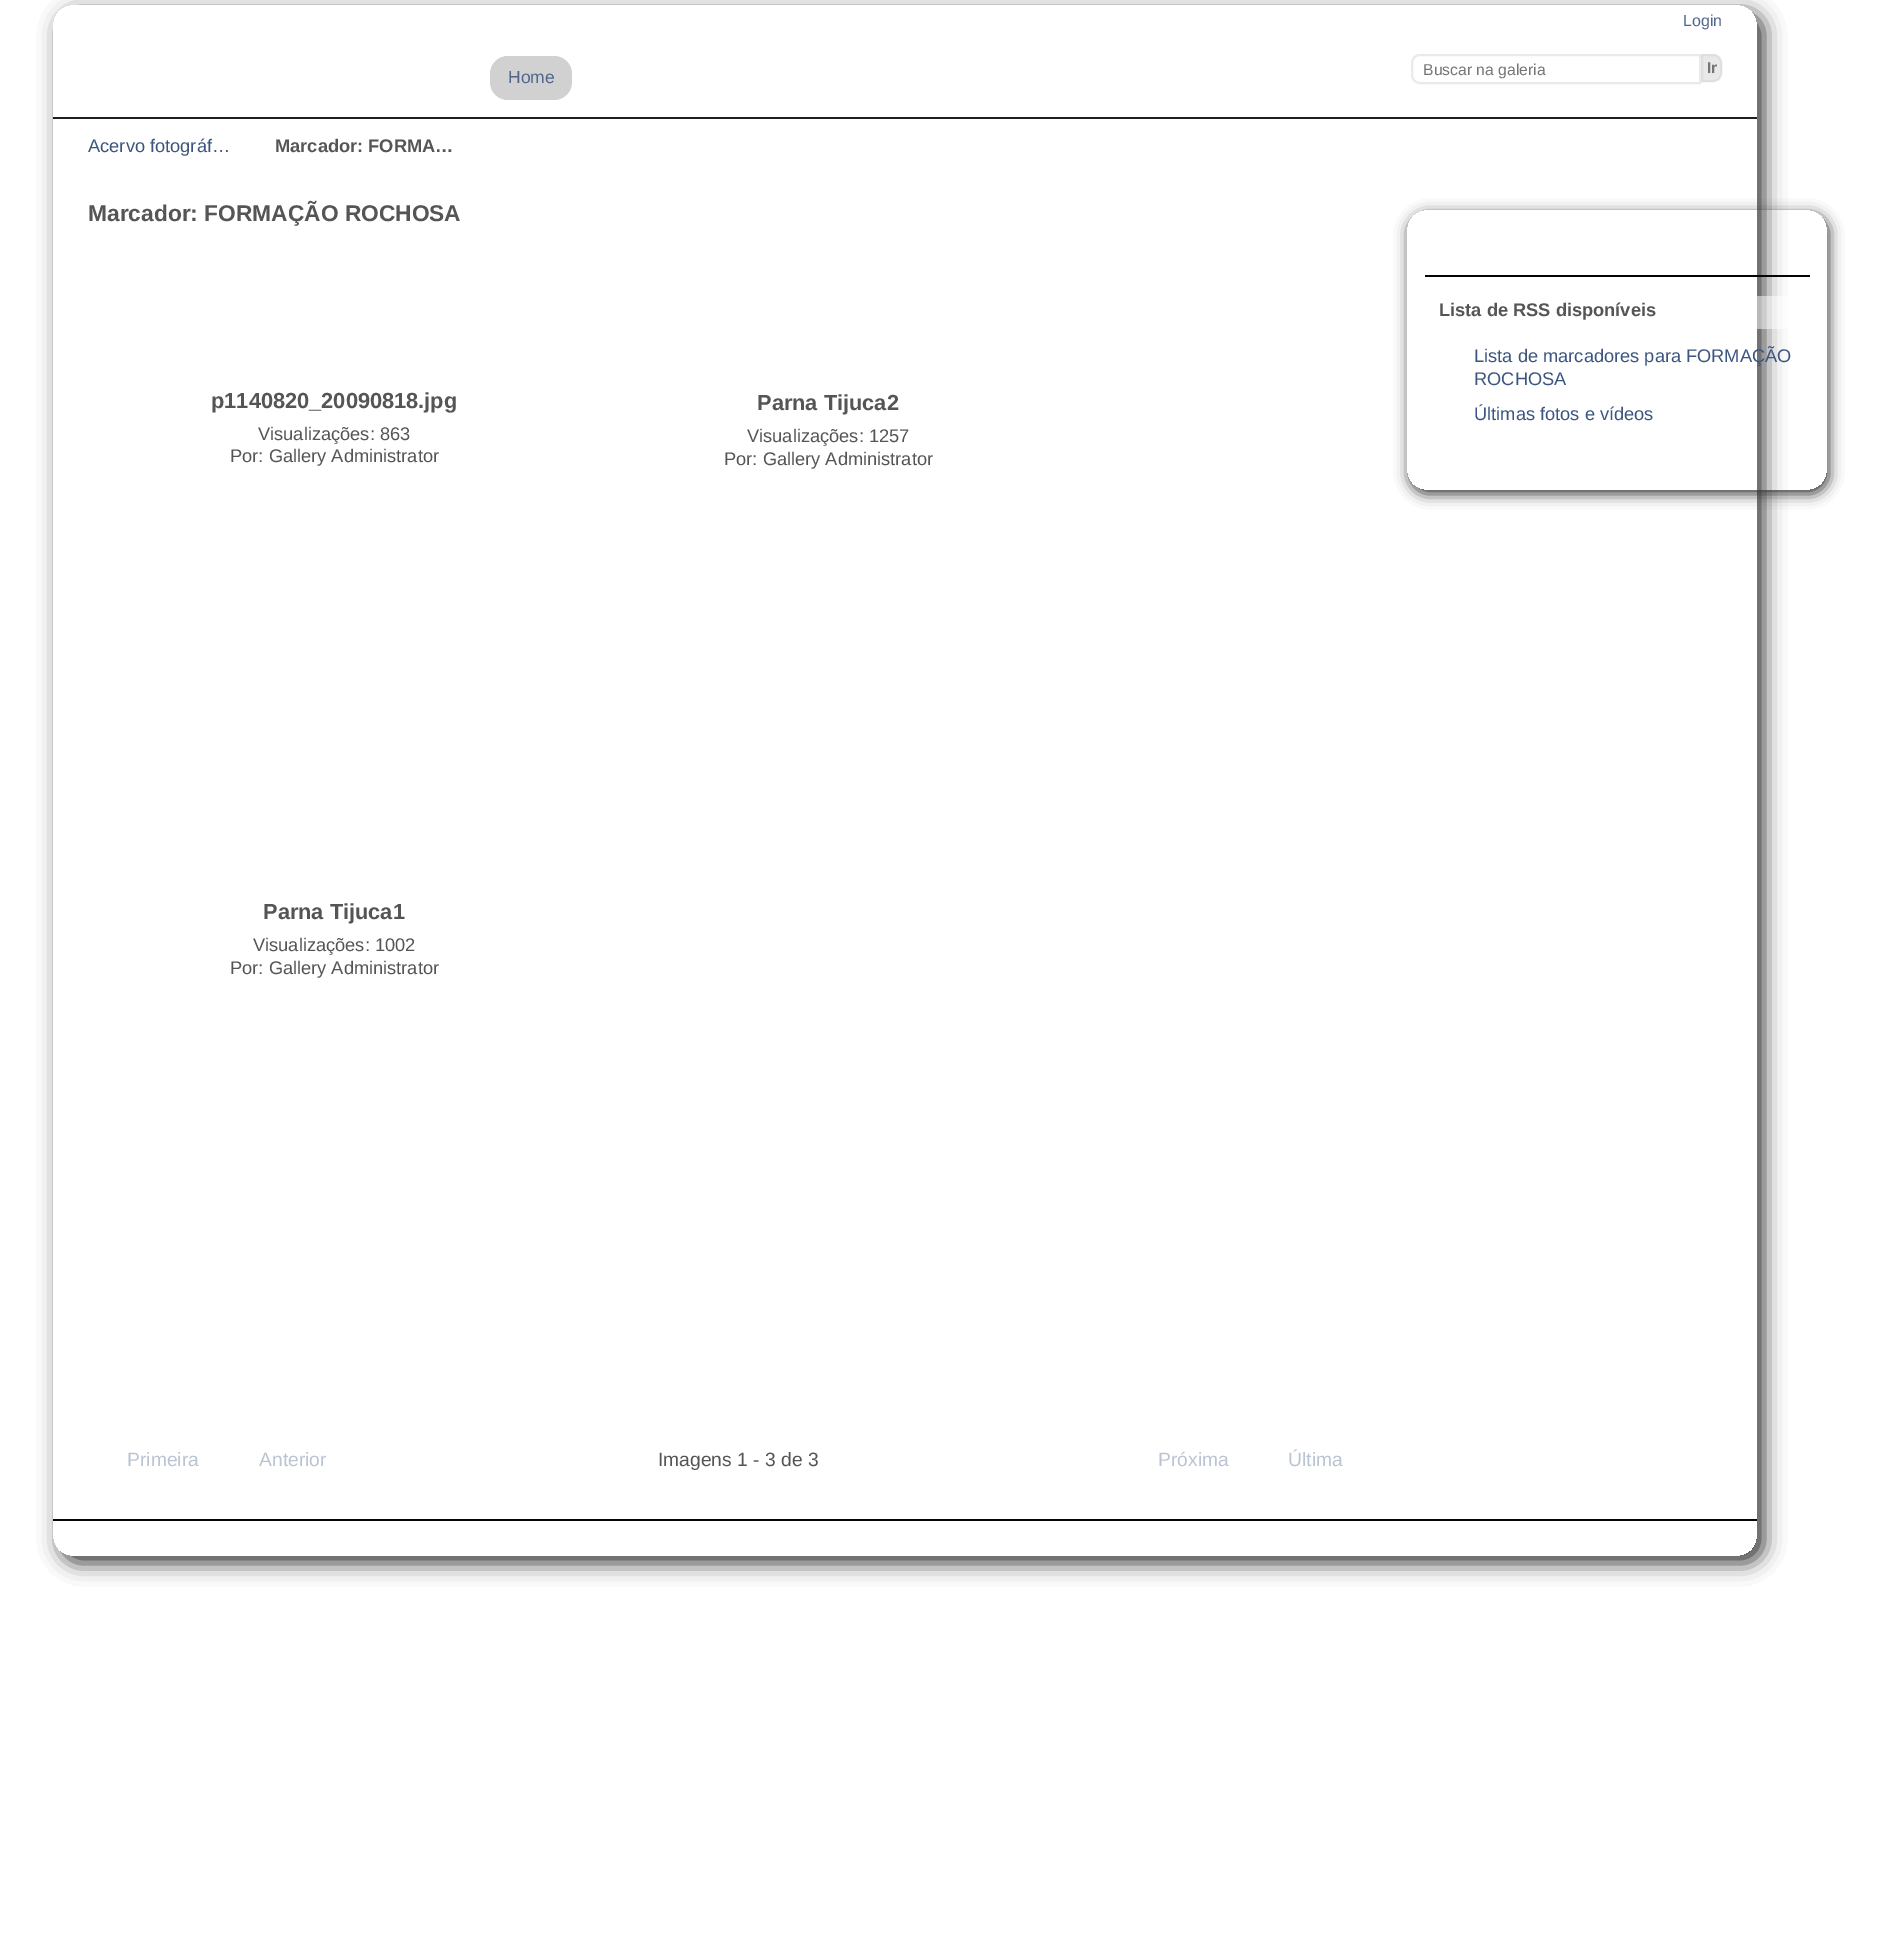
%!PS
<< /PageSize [1879 1938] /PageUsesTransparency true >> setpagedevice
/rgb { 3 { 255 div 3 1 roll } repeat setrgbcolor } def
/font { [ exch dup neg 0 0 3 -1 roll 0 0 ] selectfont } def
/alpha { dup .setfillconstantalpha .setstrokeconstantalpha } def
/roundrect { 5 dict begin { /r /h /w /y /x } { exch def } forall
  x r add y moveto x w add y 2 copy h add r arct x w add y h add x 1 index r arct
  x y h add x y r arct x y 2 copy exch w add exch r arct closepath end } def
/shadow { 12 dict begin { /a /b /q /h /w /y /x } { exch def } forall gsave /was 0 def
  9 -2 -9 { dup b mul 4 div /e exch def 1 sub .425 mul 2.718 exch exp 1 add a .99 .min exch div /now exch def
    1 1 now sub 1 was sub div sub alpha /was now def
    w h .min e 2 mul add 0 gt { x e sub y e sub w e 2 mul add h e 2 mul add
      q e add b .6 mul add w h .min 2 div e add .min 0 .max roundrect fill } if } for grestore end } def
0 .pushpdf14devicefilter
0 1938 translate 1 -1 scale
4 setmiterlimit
255 255 255 rgb
0 0 1879 1938 rectfill
gsave
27 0 moveto 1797 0 lineto 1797 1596 lineto 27 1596 lineto closepath 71 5 moveto 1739 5 lineto 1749 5 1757 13 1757 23 curveto 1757 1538 lineto 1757 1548 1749 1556 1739 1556 curveto 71 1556 lineto 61 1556 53 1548 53 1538 curveto 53 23 lineto 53 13 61 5 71 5 curveto closepath eoclip newpath
51 51 51 rgb
60 12 1704 1551 18 10.5 1 shadow
grestore
30 30 30 rgb
53 117 1704 2 rectfill
209 209 209 rgb
490 56 82 44 18 roundrect fill
234 234 234 rgb
2 setlinewidth
1420 55 moveto 1700 55 lineto 1700 83 lineto 1420 83 lineto 1415.5 83 1412 79.5 1412 75 curveto 1412 63 lineto 1412 58.5 1415.5 55 1420 55 curveto closepath stroke
233 233 233 rgb
1702 55 moveto 1713 55 lineto 1717.5 55 1721 58.5 1721 63 curveto 1721 73 lineto 1721 77.5 1717.5 81 1713 81 curveto 1702 81 lineto closepath gsave fill grestore
223 223 223 rgb
stroke
gsave
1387 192 moveto 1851 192 lineto 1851 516 lineto 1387 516 lineto closepath 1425 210 moveto 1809 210 lineto 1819 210 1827 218 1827 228 curveto 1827 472 lineto 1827 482 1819 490 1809 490 curveto 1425 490 lineto 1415 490 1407 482 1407 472 curveto 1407 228 lineto 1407 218 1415 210 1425 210 curveto closepath eoclip newpath
51 51 51 rgb
1409 214 420 280 18 7 1 shadow
grestore
5 5 5 rgb
1425 275 385 2 rectfill
0.5 alpha
255 255 255 rgb
1425 296 385 33 9 roundrect fill
1 alpha
5 5 5 rgb
53 1519 1704 2 rectfill
/LiberationSans-Regular 16 font
80 102 141 rgb
1683 26 moveto (Login) show
/LiberationSans-Regular 17.5 font
508 83 moveto (Home) show
/LiberationSans-Regular 15.75 font
117 117 117 rgb
1423 75 moveto (Buscar na galeria) show
/LiberationSans-Bold 15.75 font
1707 73 moveto (Ir) show
/LiberationSans-Regular 18.25 font
60 85 128 rgb
88 152 moveto (Acervo fotográf…) show
/LiberationSans-Bold 18.25 font
85 85 85 rgb
275 152 moveto (Marcador: FORMA…) show
/LiberationSans-Bold 22.75 font
88 221 moveto (Marcador: FORMAÇÃO ROCHOSA) show
/LiberationSans-Bold 21.8 font
211 408 moveto (p1140820_20090818.jpg) show
/LiberationSans-Regular 18.25 font
258 440 moveto (Visualizações: 863) show
230 462 moveto (Por: Gallery Administrator) show
/LiberationSans-Bold 21.8 font
757 410 moveto (Parna Tijuca2) show
/LiberationSans-Regular 18.25 font
747 442 moveto (Visualizações: 1257) show
724 465 moveto (Por: Gallery Administrator) show
/LiberationSans-Bold 21.8 font
263 919 moveto (Parna Tijuca1) show
/LiberationSans-Regular 18.25 font
253 951 moveto (Visualizações: 1002) show
230 974 moveto (Por: Gallery Administrator) show
/LiberationSans-Regular 19.25 font
187 196 211 rgb
127 1466 moveto (Primeira) show
259 1466 moveto (Anterior) show
85 85 85 rgb
658 1466 moveto (Imagens 1 - 3 de 3) show
187 196 211 rgb
1158 1466 moveto (Próxima) show
1288 1466 moveto (Última) show
/LiberationSans-Bold 18.25 font
85 85 85 rgb
1439 316 moveto (Lista de RSS disponíveis) show
/LiberationSans-Regular 18.25 font
60 85 128 rgb
[
  [(Lista de marcadores para FORMAÇÃO) 1474 362]
  [(ROCHOSA) 1474 385]
  [(Últimas fotos e vídeos) 1474 420]
] { aload pop moveto show } forall
.poppdf14devicefilter showpage
